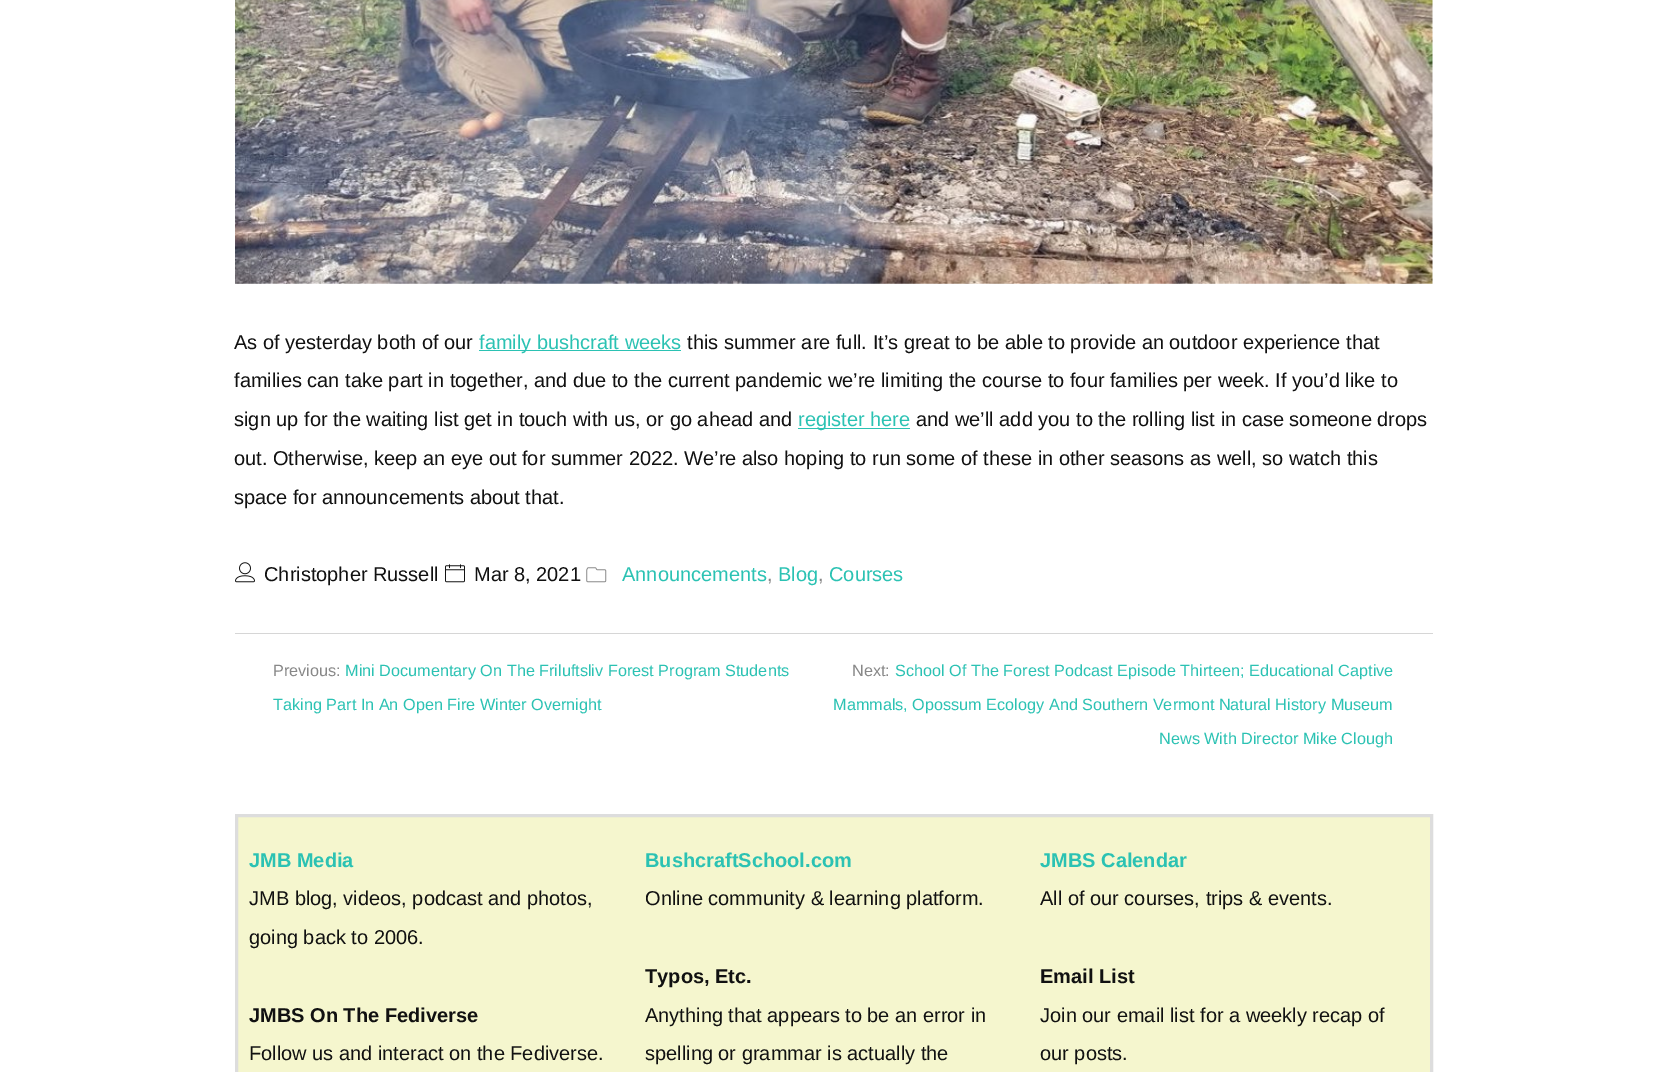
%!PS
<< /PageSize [1666 1072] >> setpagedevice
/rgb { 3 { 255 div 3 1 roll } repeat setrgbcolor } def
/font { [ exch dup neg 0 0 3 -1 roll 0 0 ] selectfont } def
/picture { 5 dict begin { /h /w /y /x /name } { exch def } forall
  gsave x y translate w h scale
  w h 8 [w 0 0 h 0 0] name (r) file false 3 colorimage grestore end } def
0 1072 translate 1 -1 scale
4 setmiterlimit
255 255 255 rgb
0 0 1666 1072 rectfill
(img/1.rgb) 235 0 1198 284 picture
43 194 179 rgb
479 350 202 1 rectfill
798 428 112 1 rectfill
(img/2.rgb) 235 562 20 21 picture
(img/3.rgb) 445 564 20 19 picture
(img/4.rgb) 586 567 21 16 picture
214 214 214 rgb
235 633 1198 1 rectfill
245 246 206 rgb
236.5 815.5 moveto 1431.5 815.5 lineto 1431.5 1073.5 lineto 236.5 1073.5 lineto closepath gsave fill grestore
221 221 221 rgb
3 setlinewidth
stroke
/LiberationSans-Regular 20 font
17 17 17 rgb
234 349 moveto (As of yesterday both of our) show
43 194 179 rgb
479 349 moveto (family bushcraft weeks) show
17 17 17 rgb
[
  [(this summer are full. It’s great to be able to provide an outdoor experience that) 687 349]
  [(families can take part in together, and due to the current pandemic we’re limiting the course to four families per week. If you’d like to) 234 387]
  [(sign up for the waiting list get in touch with us, or go ahead and) 234 426]
] { aload pop moveto show } forall
43 194 179 rgb
798 426 moveto (register here) show
17 17 17 rgb
[
  [(and we’ll add you to the rolling list in case someone drops) 916 426]
  [(out. Otherwise, keep an eye out for summer 2022. We’re also hoping to run some of these in other seasons as well, so watch this) 234 465]
  [(space for announcements about that.) 234 504]
  [(Christopher Russell) 264 581]
  [(Mar 8, 2021) 474 581]
] { aload pop moveto show } forall
43 194 179 rgb
622 581 moveto (Announcements) show
136 136 136 rgb
767 581 moveto (,) show
43 194 179 rgb
778 581 moveto (Blog) show
136 136 136 rgb
818 581 moveto (,) show
43 194 179 rgb
829 581 moveto (Courses) show
/LiberationSans-Regular 16.25 font
136 136 136 rgb
273 676 moveto (Previous:) show
43 194 179 rgb
345 676 moveto (Mini Documentary On The Friluftsliv Forest Program Students) show
273 710 moveto (Taking Part In An Open Fire Winter Overnight) show
136 136 136 rgb
852 676 moveto (Next:) show
43 194 179 rgb
[
  [(School Of The Forest Podcast Episode Thirteen; Educational Captive) 895 676]
  [(Mammals, Opossum Ecology And Southern Vermont Natural History Museum) 833 710]
  [(News With Director Mike Clough) 1159 744]
] { aload pop moveto show } forall
/LiberationSans-Bold 20 font
249 867 moveto (JMB Media) show
/LiberationSans-Regular 20 font
17 17 17 rgb
249 905 moveto (JMB blog, videos, podcast and photos,) show
249 944 moveto (going back to 2006.) show
/LiberationSans-Bold 20 font
249 1022 moveto (JMBS On The Fediverse) show
/LiberationSans-Regular 20 font
249 1060 moveto (Follow us and interact on the Fediverse.) show
/LiberationSans-Bold 20 font
43 194 179 rgb
645 867 moveto (BushcraftSchool.com) show
/LiberationSans-Regular 20 font
17 17 17 rgb
645 905 moveto (Online community & learning platform.) show
/LiberationSans-Bold 20 font
645 983 moveto (Typos, Etc.) show
/LiberationSans-Regular 20 font
645 1022 moveto (Anything that appears to be an error in) show
645 1060 moveto (spelling or grammar is actually the) show
/LiberationSans-Bold 20 font
43 194 179 rgb
1040 867 moveto (JMBS Calendar) show
/LiberationSans-Regular 20 font
17 17 17 rgb
1040 905 moveto (All of our courses, trips & events.) show
/LiberationSans-Bold 20 font
1040 983 moveto (Email List) show
/LiberationSans-Regular 20 font
1040 1022 moveto (Join our email list for a weekly recap of) show
1040 1060 moveto (our posts.) show
showpage
